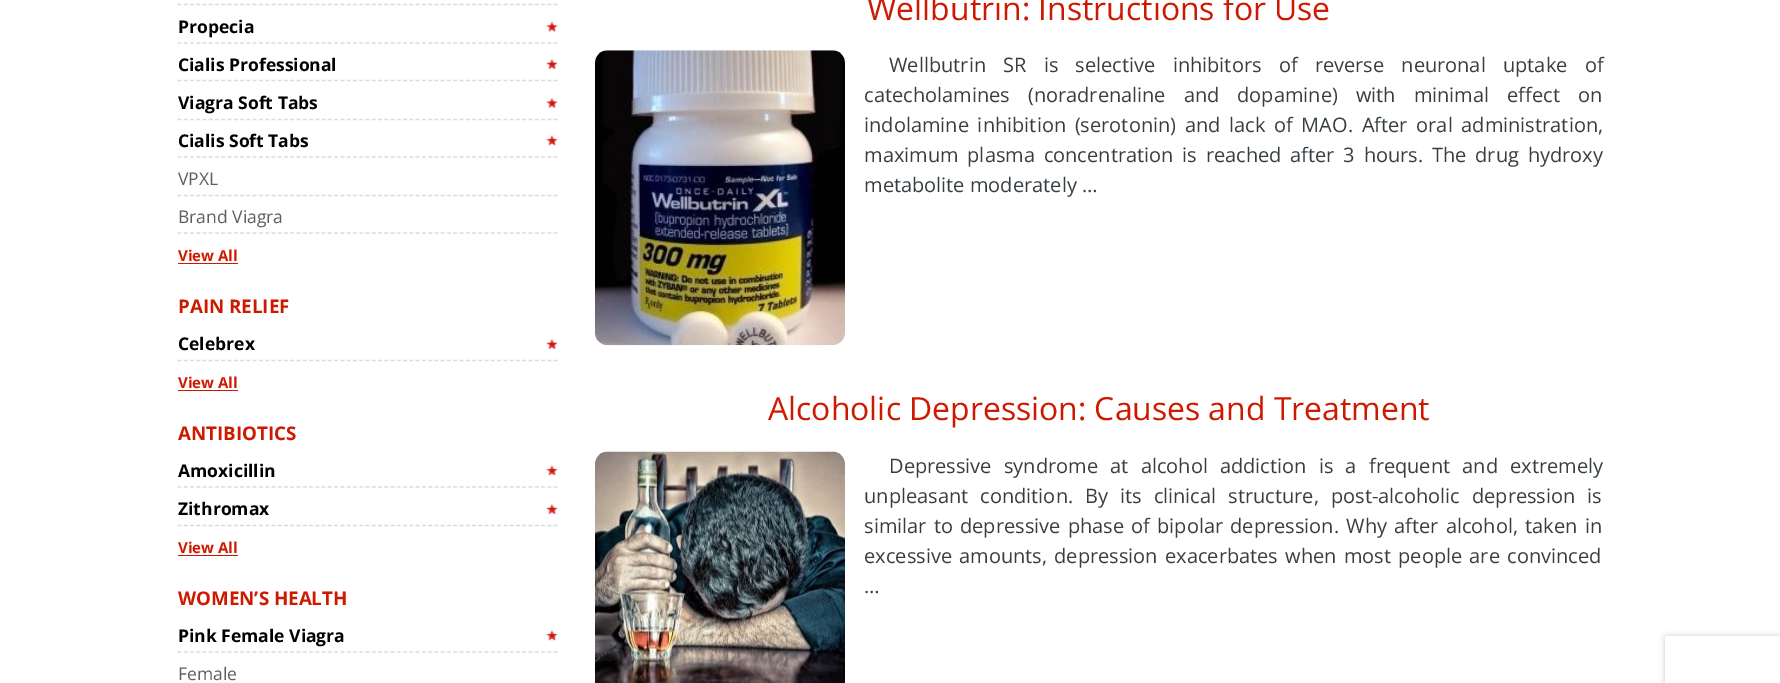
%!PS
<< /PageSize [1780 683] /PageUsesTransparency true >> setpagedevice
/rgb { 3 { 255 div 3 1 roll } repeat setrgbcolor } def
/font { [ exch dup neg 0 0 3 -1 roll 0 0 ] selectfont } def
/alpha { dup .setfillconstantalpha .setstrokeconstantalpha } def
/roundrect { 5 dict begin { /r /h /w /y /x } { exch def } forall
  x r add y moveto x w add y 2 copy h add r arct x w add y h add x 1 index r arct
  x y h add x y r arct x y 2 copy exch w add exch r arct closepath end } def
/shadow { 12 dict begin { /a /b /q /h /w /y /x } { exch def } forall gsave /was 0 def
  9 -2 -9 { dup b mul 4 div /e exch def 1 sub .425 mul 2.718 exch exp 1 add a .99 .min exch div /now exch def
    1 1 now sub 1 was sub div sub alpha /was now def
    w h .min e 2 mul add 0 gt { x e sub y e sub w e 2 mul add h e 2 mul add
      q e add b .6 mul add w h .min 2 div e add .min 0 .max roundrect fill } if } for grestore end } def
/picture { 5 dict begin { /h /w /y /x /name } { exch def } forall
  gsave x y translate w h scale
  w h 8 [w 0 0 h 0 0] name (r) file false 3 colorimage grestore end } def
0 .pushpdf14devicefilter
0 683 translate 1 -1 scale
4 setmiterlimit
255 255 255 rgb
0 0 1780 683 rectfill
219 219 219 rgb
1.2 setlinewidth
[3.75 2.52] 0 setdash
177.5 4.5 moveto 557.5 4.5 lineto stroke
(img/1.rgb) 546 21 12 11 picture
177.5 43 moveto 557.5 43 lineto stroke
(img/2.rgb) 546 59 12 10 picture
177.5 80.5 moveto 557.5 80.5 lineto stroke
(img/3.rgb) 546 97 12 11 picture
177.5 119.5 moveto 557.5 119.5 lineto stroke
(img/4.rgb) 546 135 12 11 picture
177.5 157 moveto 557.5 157 lineto stroke
177.5 195.5 moveto 557.5 195.5 lineto stroke
177.5 233 moveto 557.5 233 lineto stroke
205 25 0 rgb
178 263 60 1 rectfill
(img/2.rgb) 546 339 12 10 picture
219 219 219 rgb
177.5 360.5 moveto 557.5 360.5 lineto stroke
205 25 0 rgb
178 390 60 1 rectfill
(img/4.rgb) 546 465 12 11 picture
219 219 219 rgb
177.5 487 moveto 557.5 487 lineto stroke
(img/2.rgb) 546 504 12 10 picture
177.5 525.5 moveto 557.5 525.5 lineto stroke
205 25 0 rgb
178 555 60 1 rectfill
(img/4.rgb) 546 630 12 11 picture
219 219 219 rgb
177.5 652 moveto 557.5 652 lineto stroke
(img/5.rgb) 595 50 250 296 picture
(img/6.rgb) 595 451 250 232 picture
0 0 0 rgb
1665 636 115 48 2.5 3 0.2 shadow
255 255 255 rgb
1667.5 636 moveto 1780 636 lineto 1780 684 lineto 1665 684 lineto 1665 638.5 lineto 1665 637 1666 636 1667.5 636 curveto closepath fill
/OpenSans-Bold 17.5 font
0 0 0 rgb
[
  [(Propecia) 178 33]
  [(Cialis Professional) 178 71]
  [(Viagra Soft Tabs) 178 109]
  [(Cialis Soft Tabs) 178 147]
] { aload pop moveto show } forall
/OpenSans-Regular 17.5 font
94 94 94 rgb
178 185 moveto (VPXL) show
178 223 moveto (Brand Viagra) show
/OpenSans-Bold 15 font
205 25 0 rgb
178 261 moveto (View All) show
/OpenSans-Bold 18.75 font
178 313 moveto (PAIN RELIEF) show
/OpenSans-Bold 17.5 font
0 0 0 rgb
178 350 moveto (Celebrex) show
/OpenSans-Bold 15 font
205 25 0 rgb
178 388 moveto (View All) show
/OpenSans-Bold 18.75 font
178 440 moveto (ANTIBIOTICS) show
/OpenSans-Bold 17.5 font
0 0 0 rgb
178 477 moveto (Amoxicillin) show
178 515 moveto (Zithromax) show
/OpenSans-Bold 15 font
205 25 0 rgb
178 553 moveto (View All) show
/OpenSans-Bold 18.75 font
178 605 moveto (WOMEN’S HEALTH) show
/OpenSans-Bold 17.5 font
0 0 0 rgb
178 642 moveto (Pink Female Viagra) show
/OpenSans-Regular 17.5 font
94 94 94 rgb
178 680 moveto (Female) show
/OpenSans-Regular 31.9 font
205 25 0 rgb
867 20 moveto (Wellbutrin: Instructions for Use) show
/OpenSans-Regular 20 font
55 62 66 rgb
889 72 moveto 12 0 32 (Wellbutrin SR is selective inhibitors of reverse neuronal uptake of) widthshow
864 102 moveto 12.75 0 32 (catecholamines \(noradrenaline and dopamine\) with minimal effect on) widthshow
864 132 moveto 3.5 0 32 (indolamine inhibition \(serotonin\) and lack of MAO. After oral administration,) widthshow
864 162 moveto 3.6 0 32 (maximum plasma concentration is reached after 3 hours. The drug hydroxy) widthshow
864 192 moveto (metabolite moderately …) show
/OpenSans-Regular 31.9 font
205 25 0 rgb
768 420 moveto (Alcoholic Depression: Causes and Treatment) show
/OpenSans-Regular 20 font
55 62 66 rgb
889 473 moveto 7 0 32 (Depressive syndrome at alcohol addiction is a frequent and extremely) widthshow
864 503 moveto 6.75 0 32 (unpleasant condition. By its clinical structure, post-alcoholic depression is) widthshow
864 533 moveto 2 0 32 (similar to depressive phase of bipolar depression. Why after alcohol, taken in) widthshow
864 563 moveto 2 0 32 (excessive amounts, depression exacerbates when most people are convinced) widthshow
864 593 moveto (…) show
.poppdf14devicefilter showpage
